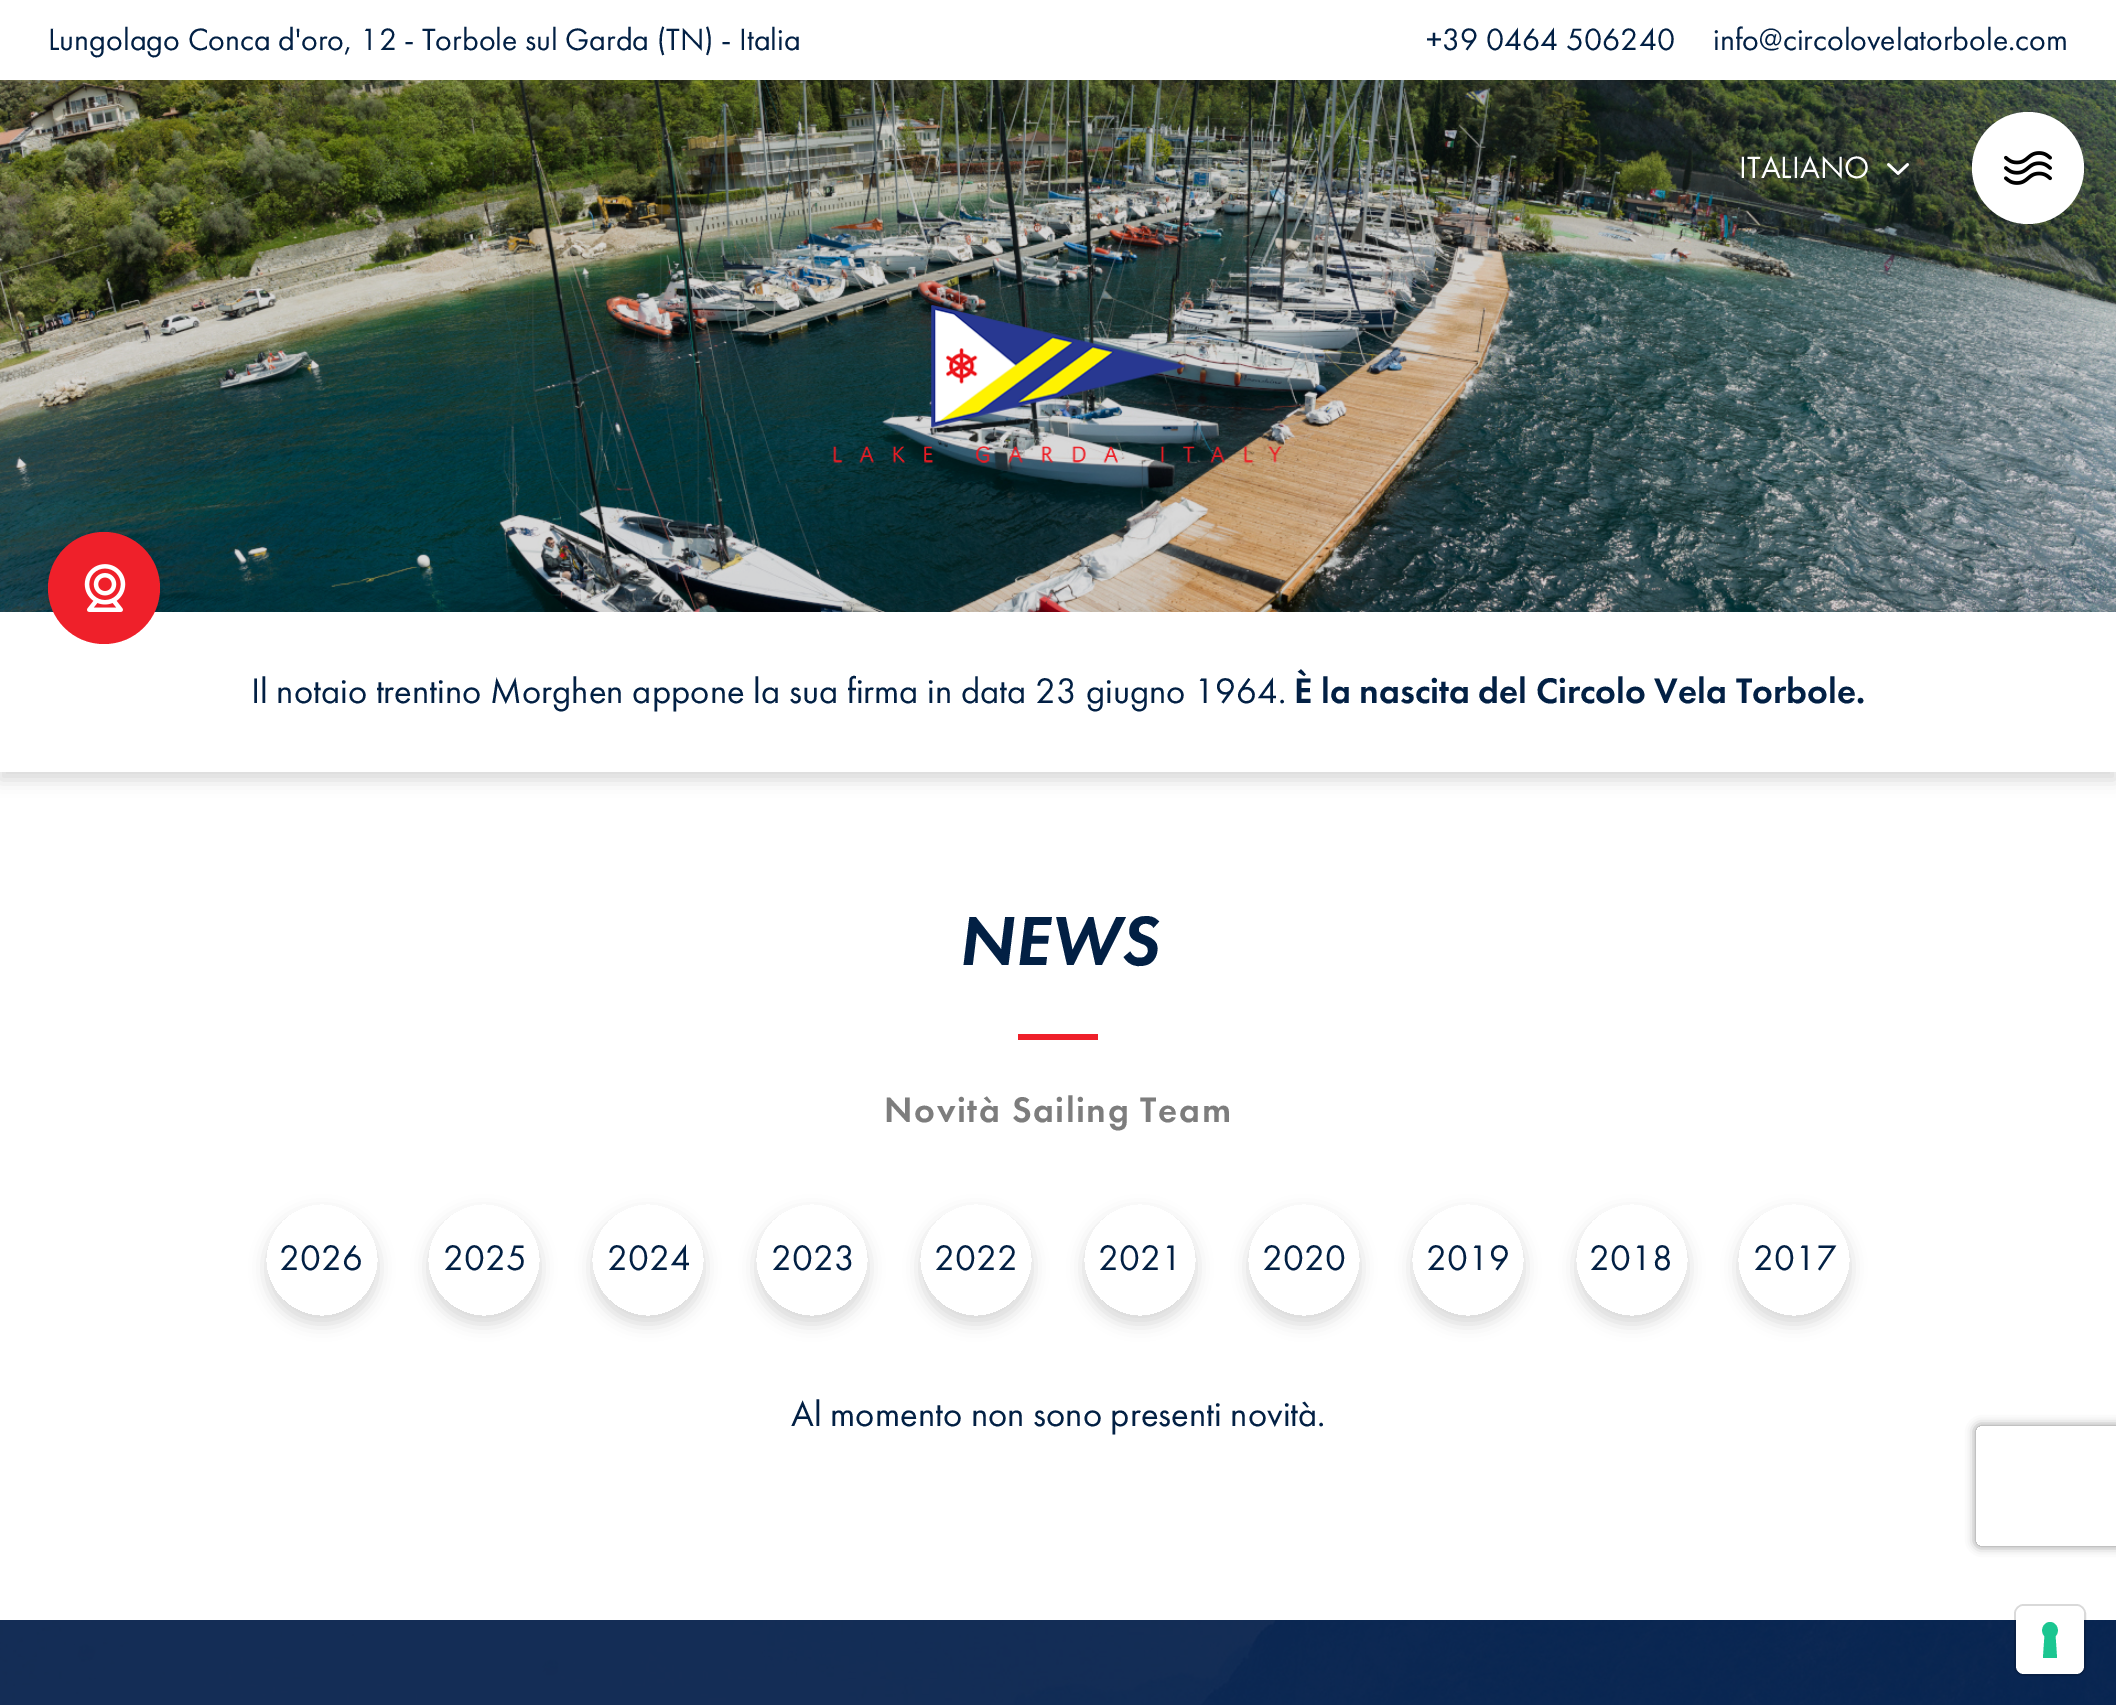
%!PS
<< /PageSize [2116 1705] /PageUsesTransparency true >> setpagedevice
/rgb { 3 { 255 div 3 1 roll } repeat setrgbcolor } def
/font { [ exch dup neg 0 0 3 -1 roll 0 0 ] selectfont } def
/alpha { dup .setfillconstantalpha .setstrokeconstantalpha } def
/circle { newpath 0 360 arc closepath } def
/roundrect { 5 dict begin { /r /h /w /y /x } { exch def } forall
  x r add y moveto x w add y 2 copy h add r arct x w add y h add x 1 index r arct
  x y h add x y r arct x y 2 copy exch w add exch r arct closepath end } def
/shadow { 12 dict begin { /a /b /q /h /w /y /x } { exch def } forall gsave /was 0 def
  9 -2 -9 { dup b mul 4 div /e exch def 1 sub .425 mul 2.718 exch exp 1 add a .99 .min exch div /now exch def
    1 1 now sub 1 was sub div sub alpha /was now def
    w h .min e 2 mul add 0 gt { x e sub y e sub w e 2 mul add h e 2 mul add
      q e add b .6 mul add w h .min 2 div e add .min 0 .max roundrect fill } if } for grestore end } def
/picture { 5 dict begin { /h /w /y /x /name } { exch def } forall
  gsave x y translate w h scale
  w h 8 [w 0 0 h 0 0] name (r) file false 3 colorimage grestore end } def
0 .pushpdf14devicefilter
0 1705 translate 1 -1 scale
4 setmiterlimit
255 255 255 rgb
0 0 2116 1705 rectfill
(img/1.rgb) 0 80 2116 532 picture
(img/2.rgb) 1887 163 22 12 picture
2028 168 56 circle fill
(img/3.rgb) 2004 151 48 34 picture
(img/4.rgb) 833 305 449 158 picture
0 0 0 rgb
0 620 2116 160 0 8 0.15 shadow
255 255 255 rgb
0 612 2116 160 rectfill
239 32 42 rgb
104 588 56 circle fill
(img/5.rgb) 84 564 42 48 picture
1018 1034 80 6 rectfill
gsave
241 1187 moveto 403 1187 lineto 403 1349 lineto 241 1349 lineto closepath 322 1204 moveto 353 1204 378 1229 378 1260 curveto 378 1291 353 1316 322 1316 curveto 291 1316 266 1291 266 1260 curveto 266 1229 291 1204 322 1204 curveto closepath eoclip newpath
0 0 0 rgb
266 1212 112 112 56 8 0.15 shadow
grestore
gsave
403 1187 moveto 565 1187 lineto 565 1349 lineto 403 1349 lineto closepath 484 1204 moveto 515 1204 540 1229 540 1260 curveto 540 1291 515 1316 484 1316 curveto 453 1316 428 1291 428 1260 curveto 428 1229 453 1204 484 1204 curveto closepath eoclip newpath
0 0 0 rgb
428 1212 112 112 56 8 0.15 shadow
grestore
gsave
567 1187 moveto 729 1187 lineto 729 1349 lineto 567 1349 lineto closepath 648 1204 moveto 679 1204 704 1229 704 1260 curveto 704 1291 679 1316 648 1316 curveto 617 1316 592 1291 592 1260 curveto 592 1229 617 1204 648 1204 curveto closepath eoclip newpath
0 0 0 rgb
592 1212 112 112 56 8 0.15 shadow
grestore
gsave
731 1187 moveto 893 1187 lineto 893 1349 lineto 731 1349 lineto closepath 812 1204 moveto 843 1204 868 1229 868 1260 curveto 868 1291 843 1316 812 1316 curveto 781 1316 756 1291 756 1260 curveto 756 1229 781 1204 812 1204 curveto closepath eoclip newpath
0 0 0 rgb
756 1212 112 112 56 8 0.15 shadow
grestore
gsave
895 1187 moveto 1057 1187 lineto 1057 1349 lineto 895 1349 lineto closepath 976 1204 moveto 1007 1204 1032 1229 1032 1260 curveto 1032 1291 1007 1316 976 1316 curveto 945 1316 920 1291 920 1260 curveto 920 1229 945 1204 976 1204 curveto closepath eoclip newpath
0 0 0 rgb
920 1212 112 112 56 8 0.15 shadow
grestore
gsave
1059 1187 moveto 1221 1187 lineto 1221 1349 lineto 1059 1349 lineto closepath 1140 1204 moveto 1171 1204 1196 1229 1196 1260 curveto 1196 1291 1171 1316 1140 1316 curveto 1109 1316 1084 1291 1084 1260 curveto 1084 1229 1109 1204 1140 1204 curveto closepath eoclip newpath
0 0 0 rgb
1084 1212 112 112 56 8 0.15 shadow
grestore
gsave
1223 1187 moveto 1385 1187 lineto 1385 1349 lineto 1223 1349 lineto closepath 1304 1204 moveto 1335 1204 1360 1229 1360 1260 curveto 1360 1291 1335 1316 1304 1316 curveto 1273 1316 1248 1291 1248 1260 curveto 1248 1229 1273 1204 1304 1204 curveto closepath eoclip newpath
0 0 0 rgb
1248 1212 112 112 56 8 0.15 shadow
grestore
gsave
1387 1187 moveto 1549 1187 lineto 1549 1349 lineto 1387 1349 lineto closepath 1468 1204 moveto 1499 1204 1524 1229 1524 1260 curveto 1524 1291 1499 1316 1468 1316 curveto 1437 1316 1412 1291 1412 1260 curveto 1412 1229 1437 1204 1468 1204 curveto closepath eoclip newpath
0 0 0 rgb
1412 1212 112 112 56 8 0.15 shadow
grestore
gsave
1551 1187 moveto 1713 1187 lineto 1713 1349 lineto 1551 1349 lineto closepath 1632 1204 moveto 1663 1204 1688 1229 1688 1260 curveto 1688 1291 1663 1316 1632 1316 curveto 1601 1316 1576 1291 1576 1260 curveto 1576 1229 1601 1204 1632 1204 curveto closepath eoclip newpath
0 0 0 rgb
1576 1212 112 112 56 8 0.15 shadow
grestore
gsave
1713 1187 moveto 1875 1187 lineto 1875 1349 lineto 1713 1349 lineto closepath 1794 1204 moveto 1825 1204 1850 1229 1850 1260 curveto 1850 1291 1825 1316 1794 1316 curveto 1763 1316 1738 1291 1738 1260 curveto 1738 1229 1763 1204 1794 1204 curveto closepath eoclip newpath
0 0 0 rgb
1738 1212 112 112 56 8 0.15 shadow
grestore
gsave
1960 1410 moveto 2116 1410 lineto 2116 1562 lineto 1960 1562 lineto closepath 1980 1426 moveto 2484 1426 lineto 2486 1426 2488 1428 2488 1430 curveto 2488 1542 lineto 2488 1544 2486 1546 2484 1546 curveto 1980 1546 lineto 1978 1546 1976 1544 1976 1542 curveto 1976 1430 lineto 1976 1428 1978 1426 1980 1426 curveto closepath eoclip newpath
128 128 128 rgb
1976 1426 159 120 4 5 1 shadow
grestore
(img/6.rgb) 0 1620 2116 85 picture
0.15 alpha
0 0 0 rgb
2 setlinewidth
2015 1605 70 70 9 roundrect stroke
1 alpha
255 255 255 rgb
2016 1606 68 68 8 roundrect fill
28 198 145 rgb
2050 1622 moveto 2057 1622 2060.5 1631.5 2055.5 1636 curveto 2057 1658 lineto 2043 1658 lineto 2044.5 1636 lineto 2039.5 1631.5 2043 1622 2050 1622 curveto closepath eofill
/FuturaPT-Regular 32 font
2 32 68 rgb
[
  [(Lungolago Conca d'oro, 12 - Torbole sul Garda \(TN\) - Italia) 48 50]
  [(+39 0464 506240) 1426 50]
  [(info@circolovelatorbole.com) 1713 50]
] { aload pop moveto show } forall
255 255 255 rgb
1739 178 moveto (ITALIANO) show
/FuturaPT-Regular 36.8 font
2 32 68 rgb
251 703 moveto (Il notaio trentino Morghen appone la sua firma in data 23 giugno 1964.) show
/FuturaPT-Medium 36.8 font
1294 703 moveto (È la nascita del Circolo Vela Torbole.) show
/FuturaPT-MediumItalic 72 font
958 965 moveto (NEWS) show
/FuturaPT-Medium 36.8 font
125 125 125 rgb
884 1122 moveto 1.6 0 (Novità Sailing Team) ashow
/FuturaPT-Regular 36.8 font
2 32 68 rgb
[
  [(2026) 279 1270]
  [(2025) 443 1270]
  [(2024) 607 1270]
  [(2023) 771 1270]
  [(2022) 934 1270]
  [(2021) 1098 1270]
  [(2020) 1262 1270]
  [(2019) 1426 1270]
  [(2018) 1589 1270]
  [(2017) 1753 1270]
  [(Al momento non sono presenti novità.) 791 1426]
] { aload pop moveto show } forall
.poppdf14devicefilter showpage
